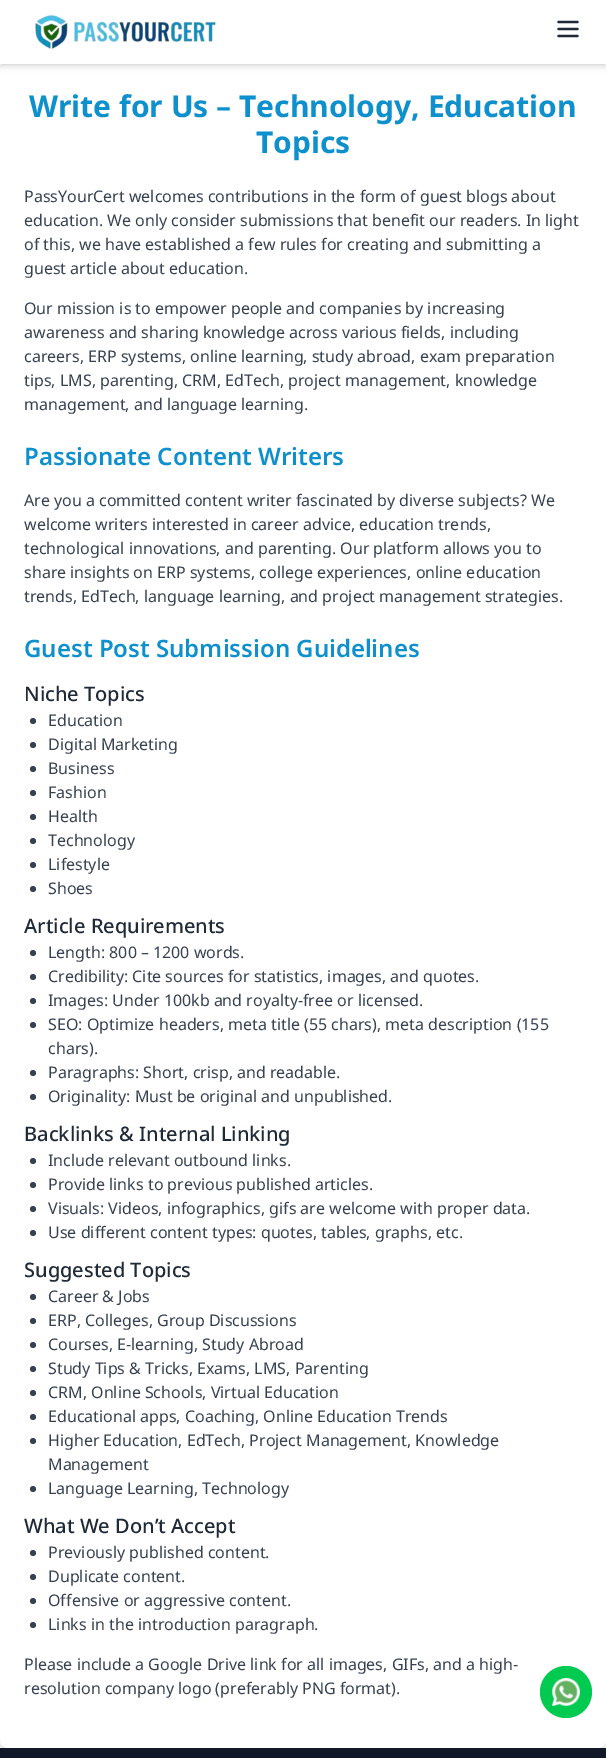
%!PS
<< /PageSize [606 1758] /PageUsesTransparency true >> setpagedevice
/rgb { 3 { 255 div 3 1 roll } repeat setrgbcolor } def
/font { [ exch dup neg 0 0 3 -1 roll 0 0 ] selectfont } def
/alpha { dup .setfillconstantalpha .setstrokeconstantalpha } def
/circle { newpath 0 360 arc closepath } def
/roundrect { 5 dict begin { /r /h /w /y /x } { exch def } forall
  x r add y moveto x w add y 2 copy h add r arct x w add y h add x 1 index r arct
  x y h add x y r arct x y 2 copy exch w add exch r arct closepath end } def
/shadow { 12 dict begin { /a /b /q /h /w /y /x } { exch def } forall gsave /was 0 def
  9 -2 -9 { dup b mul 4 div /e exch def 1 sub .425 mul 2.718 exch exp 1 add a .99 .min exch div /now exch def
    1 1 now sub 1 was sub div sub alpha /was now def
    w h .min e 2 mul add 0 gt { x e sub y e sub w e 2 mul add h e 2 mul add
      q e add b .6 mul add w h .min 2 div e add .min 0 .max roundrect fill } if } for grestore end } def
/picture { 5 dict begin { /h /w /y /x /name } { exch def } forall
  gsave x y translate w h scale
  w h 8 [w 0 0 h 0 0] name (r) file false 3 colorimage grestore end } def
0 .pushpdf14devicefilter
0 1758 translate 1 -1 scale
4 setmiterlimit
249 250 251 rgb
0 0 606 1758 rectfill
0 0 0 rgb
2 68 602 1680 6 2 0.1 shadow
1 69 604 1682 7 3 0.1 shadow
255 255 255 rgb
0 64 606 1684 8 roundrect fill
0 0 0 rgb
2 4 602 60 0 2 0.1 shadow
1 5 604 62 0 3 0.1 shadow
255 255 255 rgb
0 0 606 64 rectfill
(img/1.rgb) 35 14 181 35 picture
31 41 55 rgb
2.3 setlinewidth
1 setlinecap
1 setlinejoin
558.5 29 moveto 577.5 29 lineto 558.5 36 moveto 577.5 36 lineto 558.5 22 moveto 577.5 22 lineto stroke
55 65 81 rgb
33 721 3 circle fill
33 745 3 circle fill
33 769 3 circle fill
33 793 3 circle fill
33 817 3 circle fill
33 841 3 circle fill
33 865 3 circle fill
33 889 3 circle fill
33 953 3 circle fill
33 977 3 circle fill
33 1001 3 circle fill
33 1025 3 circle fill
33 1073 3 circle fill
33 1097 3 circle fill
33 1161 3 circle fill
33 1185 3 circle fill
33 1209 3 circle fill
33 1233 3 circle fill
33 1297 3 circle fill
33 1321 3 circle fill
33 1345 3 circle fill
33 1369 3 circle fill
33 1393 3 circle fill
33 1417 3 circle fill
33 1441 3 circle fill
33 1489 3 circle fill
33 1553 3 circle fill
33 1577 3 circle fill
33 1601 3 circle fill
33 1625 3 circle fill
0 202 79 rgb
566 1692 26 circle fill
(img/2.rgb) 552 1678 28 28 picture
17 24 39 rgb
0 1748 606 10 rectfill
/NotoSans-Bold 30 font
14 144 205 rgb
29 117 moveto (Write for Us – Technology, Education) show
256 153 moveto (Topics) show
/NotoSans-Regular 16 font
55 65 81 rgb
[
  [(PassYourCert welcomes contributions in the form of guest blogs about) 24 202]
  [(education. We only consider submissions that benefit our readers. In light) 24 226]
  [(of this, we have established a few rules for creating and submitting a) 24 250]
  [(guest article about education.) 24 274]
  [(Our mission is to empower people and companies by increasing) 24 314]
  [(awareness and sharing knowledge across various fields, including) 24 338]
  [(careers, ERP systems, online learning, study abroad, exam preparation) 24 362]
  [(tips, LMS, parenting, CRM, EdTech, project management, knowledge) 24 386]
  [(management, and language learning.) 24 410]
] { aload pop moveto show } forall
/NotoSans-SemiBold 24 font
14 144 205 rgb
24 465 moveto (Passionate Content Writers) show
/NotoSans-Regular 16 font
55 65 81 rgb
[
  [(Are you a committed content writer fascinated by diverse subjects? We) 24 506]
  [(welcome writers interested in career advice, education trends,) 24 530]
  [(technological innovations, and parenting. Our platform allows you to) 24 554]
  [(share insights on ERP systems, college experiences, online education) 24 578]
  [(trends, EdTech, language learning, and project management strategies.) 24 602]
] { aload pop moveto show } forall
/NotoSans-SemiBold 24 font
14 144 205 rgb
24 657 moveto (Guest Post Submission Guidelines) show
/NotoSans-Medium 20 font
31 41 55 rgb
24 701 moveto (Niche Topics) show
/NotoSans-Regular 16 font
55 65 81 rgb
[
  [(Education) 48 726]
  [(Digital Marketing) 48 750]
  [(Business) 48 774]
  [(Fashion) 48 798]
  [(Health) 48 822]
  [(Technology) 48 846]
  [(Lifestyle) 48 870]
  [(Shoes) 48 894]
] { aload pop moveto show } forall
/NotoSans-Medium 20 font
31 41 55 rgb
24 933 moveto (Article Requirements) show
/NotoSans-Regular 16 font
55 65 81 rgb
[
  [(Length: 800 – 1200 words.) 48 958]
  [(Credibility: Cite sources for statistics, images, and quotes.) 48 982]
  [(Images: Under 100kb and royalty-free or licensed.) 48 1006]
  [(SEO: Optimize headers, meta title \(55 chars\), meta description \(155) 48 1030]
  [(chars\).) 48 1054]
  [(Paragraphs: Short, crisp, and readable.) 48 1078]
  [(Originality: Must be original and unpublished.) 48 1102]
] { aload pop moveto show } forall
/NotoSans-Medium 20 font
31 41 55 rgb
24 1141 moveto (Backlinks & Internal Linking) show
/NotoSans-Regular 16 font
55 65 81 rgb
[
  [(Include relevant outbound links.) 48 1166]
  [(Provide links to previous published articles.) 48 1190]
  [(Visuals: Videos, infographics, gifs are welcome with proper data.) 48 1214]
  [(Use different content types: quotes, tables, graphs, etc.) 48 1238]
] { aload pop moveto show } forall
/NotoSans-Medium 20 font
31 41 55 rgb
24 1277 moveto (Suggested Topics) show
/NotoSans-Regular 16 font
55 65 81 rgb
[
  [(Career & Jobs) 48 1302]
  [(ERP, Colleges, Group Discussions) 48 1326]
  [(Courses, E-learning, Study Abroad) 48 1350]
  [(Study Tips & Tricks, Exams, LMS, Parenting) 48 1374]
  [(CRM, Online Schools, Virtual Education) 48 1398]
  [(Educational apps, Coaching, Online Education Trends) 48 1422]
  [(Higher Education, EdTech, Project Management, Knowledge) 48 1446]
  [(Management) 48 1470]
  [(Language Learning, Technology) 48 1494]
] { aload pop moveto show } forall
/NotoSans-Medium 20 font
31 41 55 rgb
24 1533 moveto (What We Don’t Accept) show
/NotoSans-Regular 16 font
55 65 81 rgb
[
  [(Previously published content.) 48 1558]
  [(Duplicate content.) 48 1582]
  [(Offensive or aggressive content.) 48 1606]
  [(Links in the introduction paragraph.) 48 1630]
  [(Please include a Google Drive link for all images, GIFs, and a high-) 24 1670]
  [(resolution company logo \(preferably PNG format\).) 24 1694]
] { aload pop moveto show } forall
.poppdf14devicefilter showpage
